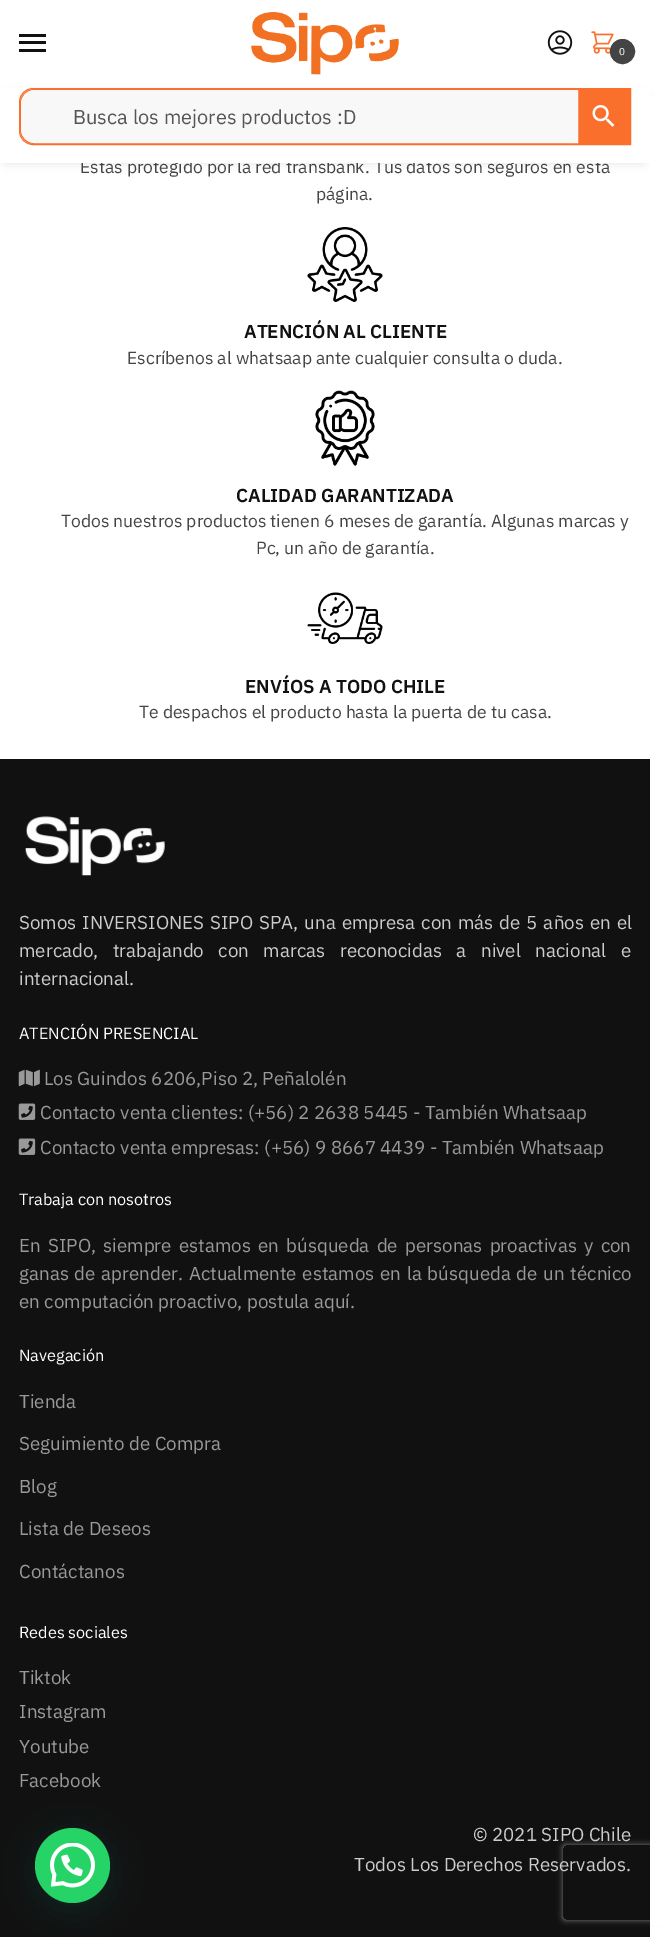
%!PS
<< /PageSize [668 1937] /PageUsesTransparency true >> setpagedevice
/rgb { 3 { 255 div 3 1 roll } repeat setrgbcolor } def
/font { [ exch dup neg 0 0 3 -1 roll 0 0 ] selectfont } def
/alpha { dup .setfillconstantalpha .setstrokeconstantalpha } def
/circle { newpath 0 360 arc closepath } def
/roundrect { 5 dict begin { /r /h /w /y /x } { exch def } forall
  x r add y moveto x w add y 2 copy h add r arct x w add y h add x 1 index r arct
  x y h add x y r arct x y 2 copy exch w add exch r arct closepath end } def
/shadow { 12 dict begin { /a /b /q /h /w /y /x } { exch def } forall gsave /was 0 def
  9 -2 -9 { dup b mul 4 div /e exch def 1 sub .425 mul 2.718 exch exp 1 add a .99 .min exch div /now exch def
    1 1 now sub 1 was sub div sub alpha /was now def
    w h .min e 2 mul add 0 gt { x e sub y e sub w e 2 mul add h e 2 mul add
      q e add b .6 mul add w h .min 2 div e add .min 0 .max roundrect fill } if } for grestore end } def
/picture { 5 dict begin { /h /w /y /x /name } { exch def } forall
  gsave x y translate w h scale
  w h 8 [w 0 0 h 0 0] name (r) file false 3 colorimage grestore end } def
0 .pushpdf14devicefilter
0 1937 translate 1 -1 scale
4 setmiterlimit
255 255 255 rgb
0 0 668 1937 rectfill
[
  [19 34 27 3 17 17 17]
  [19 41 27 3 17 17 17]
  [19 49 27 3 17 17 17]
] { aload pop rgb rectfill } forall
(img/1.rgb) 251 12 148 63 picture
(img/2.rgb) 547 30 26 25 picture
(img/3.rgb) 591 31 23 23 picture
68 68 68 rgb
622.5 51.5 12 circle gsave fill grestore
stroke
0 0 0 rgb
6 98 638 62 0 6 0.18 shadow
(img/5.rgb) 307 227 76 75 picture
(img/6.rgb) 315 390 60 76 picture
(img/7.rgb) 307 592 76 52 picture
17 17 17 rgb
0 759 650 1178 rectfill
gsave
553 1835 moveto 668 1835 lineto 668 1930 lineto 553 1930 lineto closepath 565.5 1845 moveto 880.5 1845 lineto 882 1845 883 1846 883 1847.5 curveto 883 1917.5 lineto 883 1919 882 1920 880.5 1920 curveto 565.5 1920 lineto 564 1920 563 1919 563 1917.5 curveto 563 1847.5 lineto 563 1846 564 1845 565.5 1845 curveto closepath eoclip newpath
128 128 128 rgb
563 1845 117 75 2.5 3 1 shadow
grestore
255 255 255 rgb
650 96 18 1830 rectfill
(img/8.rgb) 25 816 140 60 picture
(img/9.rgb) 18 1069 22 18 picture
(img/10.rgb) 18 1103 18 17 picture
(img/10.rgb) 18 1138 18 17 picture
7 94 84 rgb
36 1835 75 75 37.5 15 0.24 shadow
37 211 102 rgb
72.5 1865.5 37.5 circle fill
(img/11.rgb) 50 1843 45 45 picture
/IBMPlexSans-Regular 10 font
255 255 255 rgb
619 55 moveto (0) show
/IBMPlexSans-Regular 17.5 font
68 68 68 rgb
80 173 moveto (Estás protegido por la red transbank. Tus datos son seguros en esta) show
255 255 255 rgb
0 88 650 75 rectfill
251 111 45 rgb
33 88.5 moveto 630.5 88.5 lineto 630.5 144.5 lineto 33 144.5 lineto 25.5 144.5 19.5 138.5 19.5 131 curveto 19.5 102 lineto 19.5 94.5 25.5 88.5 33 88.5 curveto closepath stroke
34 89.5 moveto 629.5 89.5 lineto 629.5 143.5 lineto 34 143.5 lineto 26.5 143.5 20.5 137.5 20.5 130 curveto 20.5 103 lineto 20.5 95.5 26.5 89.5 34 89.5 curveto closepath stroke
578 90 51 53 rectfill
0 0 0 rgb
21 91 557 53 14 1 0.05 shadow
248 248 248 rgb
35 90.5 moveto 577.5 90.5 lineto 577.5 142.5 lineto 35 142.5 lineto 27.5 142.5 21.5 136.5 21.5 129 curveto 21.5 104 lineto 21.5 96.5 27.5 90.5 35 90.5 curveto closepath gsave fill grestore
stroke
/IBMPlexSans-Regular 20 font
85 85 85 rgb
73 124 moveto (Busca los mejores productos :D) show
(img/4.rgb) 592 105 23 22 picture
/IBMPlexSans-Regular 17.5 font
68 68 68 rgb
316 200 moveto (página.) show
/IBMPlexSans-SemiBold 18.75 font
17 17 17 rgb
244 338 moveto (ATENCIÓN AL CLIENTE) show
/IBMPlexSans-Regular 17.5 font
68 68 68 rgb
127 364 moveto (Escríbenos al whatsaap ante cualquier consulta o duda.) show
/IBMPlexSans-SemiBold 18.75 font
17 17 17 rgb
236 502 moveto (CALIDAD GARANTIZADA) show
/IBMPlexSans-Regular 17.5 font
68 68 68 rgb
61 527 moveto (Todos nuestros productos tienen 6 meses de garantía. Algunas marcas y) show
256 554 moveto (Pc, un año de garantía.) show
/IBMPlexSans-SemiBold 18.75 font
17 17 17 rgb
245 693 moveto (ENVÍOS A TODO CHILE) show
/IBMPlexSans-Regular 17.5 font
68 68 68 rgb
139 718 moveto (Te despachos el producto hasta la puerta de tu casa.) show
/IBMPlexSans-Regular 18.75 font
204 204 204 rgb
19 929 moveto 1.5 0 32 (Somos INVERSIONES SIPO SPA, una empresa con más de 5 años en el) widthshow
19 957 moveto 10 0 32 (mercado, trabajando con marcas reconocidas a nivel nacional e) widthshow
19 985 moveto (internacional.) show
/IBMPlexSans-Regular 16.25 font
255 255 255 rgb
19 1039 moveto (ATENCIÓN PRESENCIAL) show
/IBMPlexSans-Regular 18.75 font
153 153 153 rgb
[
  [(Los Guindos 6206,Piso 2, Peñalolén) 44 1085]
  [(Contacto venta clientes: \(+56\) 2 2638 5445 - También Whatsaap) 40 1119]
  [(Contacto venta empresas: \(+56\) 9 8667 4439 - También Whatsaap) 40 1154]
] { aload pop moveto show } forall
/IBMPlexSans-Regular 16.25 font
255 255 255 rgb
19 1205 moveto (Trabaja con nosotros) show
/IBMPlexSans-Regular 18.75 font
153 153 153 rgb
19 1252 moveto 2.75 0 32 (En SIPO, siempre estamos en búsqueda de personas proactivas y con) widthshow
19 1280 moveto 1.25 0 32 (ganas de aprender. Actualmente estamos en la búsqueda de un técnico) widthshow
19 1308 moveto (en computación proactivo, postula aquí.) show
/IBMPlexSans-Regular 16.25 font
255 255 255 rgb
19 1361 moveto (Navegación) show
/IBMPlexSans-Regular 18.75 font
153 153 153 rgb
[
  [(Tienda) 19 1408]
  [(Seguimiento de Compra) 19 1450]
  [(Blog) 19 1493]
  [(Lista de Deseos) 19 1535]
  [(Contáctanos) 19 1578]
] { aload pop moveto show } forall
/IBMPlexSans-Regular 16.25 font
255 255 255 rgb
19 1638 moveto (Redes sociales) show
/IBMPlexSans-Regular 18.75 font
153 153 153 rgb
[
  [(Tiktok) 19 1684]
  [(Instagram) 19 1718]
  [(Youtube) 19 1753]
  [(Facebook) 19 1787]
] { aload pop moveto show } forall
204 204 204 rgb
473 1841 moveto (© 2021 SIPO Chile) show
354 1871 moveto (Todos Los Derechos Reservados.) show
.poppdf14devicefilter showpage
